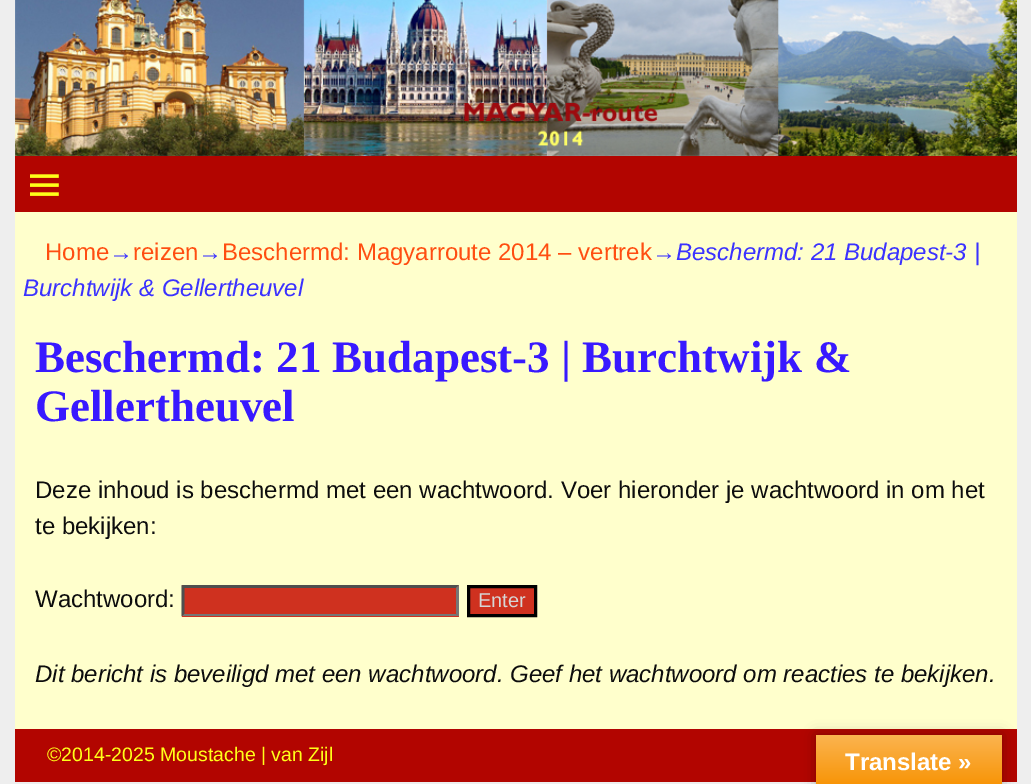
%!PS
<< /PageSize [1031 784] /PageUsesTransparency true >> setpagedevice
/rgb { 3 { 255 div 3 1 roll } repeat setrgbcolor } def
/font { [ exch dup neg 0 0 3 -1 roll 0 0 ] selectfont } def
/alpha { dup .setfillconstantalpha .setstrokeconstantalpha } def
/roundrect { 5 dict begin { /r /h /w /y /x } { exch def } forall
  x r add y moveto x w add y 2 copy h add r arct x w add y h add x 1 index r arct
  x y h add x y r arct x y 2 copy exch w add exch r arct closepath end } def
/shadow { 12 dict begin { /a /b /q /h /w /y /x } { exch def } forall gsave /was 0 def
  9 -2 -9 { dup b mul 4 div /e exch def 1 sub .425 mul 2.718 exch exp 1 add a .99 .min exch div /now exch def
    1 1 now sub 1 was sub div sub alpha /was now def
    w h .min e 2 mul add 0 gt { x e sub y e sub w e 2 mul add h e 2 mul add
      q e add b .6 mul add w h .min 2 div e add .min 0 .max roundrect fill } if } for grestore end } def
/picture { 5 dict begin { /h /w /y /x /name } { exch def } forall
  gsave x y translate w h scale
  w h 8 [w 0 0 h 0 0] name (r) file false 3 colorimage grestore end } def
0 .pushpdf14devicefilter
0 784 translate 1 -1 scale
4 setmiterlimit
238 238 238 rgb
0 0 1031 784 rectfill
178 5 0 rgb
15 156 1002 56 rectfill
(img/1.rgb) 15 0 1002 156 picture
(img/2.rgb) 30 174 29 22 picture
255 255 204 rgb
15 212 1002 517 rectfill
207 49 31 rgb
182 585 277 32 rectfill
79 79 79 rgb
182 585 moveto 459 585 lineto 456 588 lineto 184 588 lineto closepath fill
118 118 118 rgb
459 585 moveto 459 616.5 lineto 456 613.5 lineto 456 588 lineto closepath fill
459 616 moveto 182 616 lineto 184 614 lineto 456 614 lineto closepath fill
79 79 79 rgb
181.5 616.5 moveto 181.5 585 lineto 184.5 588 lineto 184.5 613.5 lineto closepath fill
207 49 31 rgb
468.5 586.5 moveto 535.5 586.5 lineto 535.5 615.5 lineto 468.5 615.5 lineto closepath gsave fill grestore
0 0 0 rgb
3 setlinewidth
stroke
178 5 0 rgb
15 729 1002 53 rectfill
0 0 0 rgb
816 735 186 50 0 7 0.3 shadow
gsave 816 735 moveto 1002 735 lineto 1002 784 lineto 816 784 lineto closepath clip newpath
<< /ShadingType 2 /ColorSpace /DeviceRGB /Coords [909 735 909 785] /Extend [true true] /Function << /FunctionType 2 /Domain [0 1] /C0 [0.984 0.706 0.314] /C1 [0.973 0.58 0.024] /N 1 >> >> shfill grestore
/LiberationSans-Regular 24 font
255 78 17 rgb
45 260 moveto (Home) show
59 50 255 rgb
109 260 moveto (→) show
255 78 17 rgb
133 260 moveto (reizen) show
59 50 255 rgb
198 260 moveto (→) show
255 78 17 rgb
222 260 moveto (Beschermd: Magyarroute 2014 – vertrek) show
59 50 255 rgb
652 260 moveto (→) show
/LiberationSans-Italic 24 font
676 260 moveto (Beschermd: 21 Budapest-3 |) show
23 296 moveto (Burchtwijk & Gellertheuvel) show
/LiberationSerif-Bold 45 font
56 25 255 rgb
35 372 moveto (Beschermd: 21 Budapest-3 | Burchtwijk &) show
35 421 moveto (Gellertheuvel) show
/LiberationSans-Regular 24 font
13 13 13 rgb
[
  [(Deze inhoud is beschermd met een wachtwoord. Voer hieronder je wachtwoord in om het) 35 498]
  [(te bekijken:) 35 534]
  [(Wachtwoord:) 35 607]
] { aload pop moveto show } forall
/LiberationSans-Regular 20 font
214 214 214 rgb
478 607 moveto (Enter) show
/LiberationSans-Italic 24 font
13 13 13 rgb
35 682 moveto (Dit bericht is beveiligd met een wachtwoord. Geef het wachtwoord om reacties te bekijken.) show
/LiberationSans-Regular 19.5 font
255 255 25 rgb
47 761 moveto (©2014-2025 Moustache | van Zijl) show
/LiberationSans-Bold 24 font
255 255 255 rgb
845 770 moveto (Translate ») show
.poppdf14devicefilter showpage
